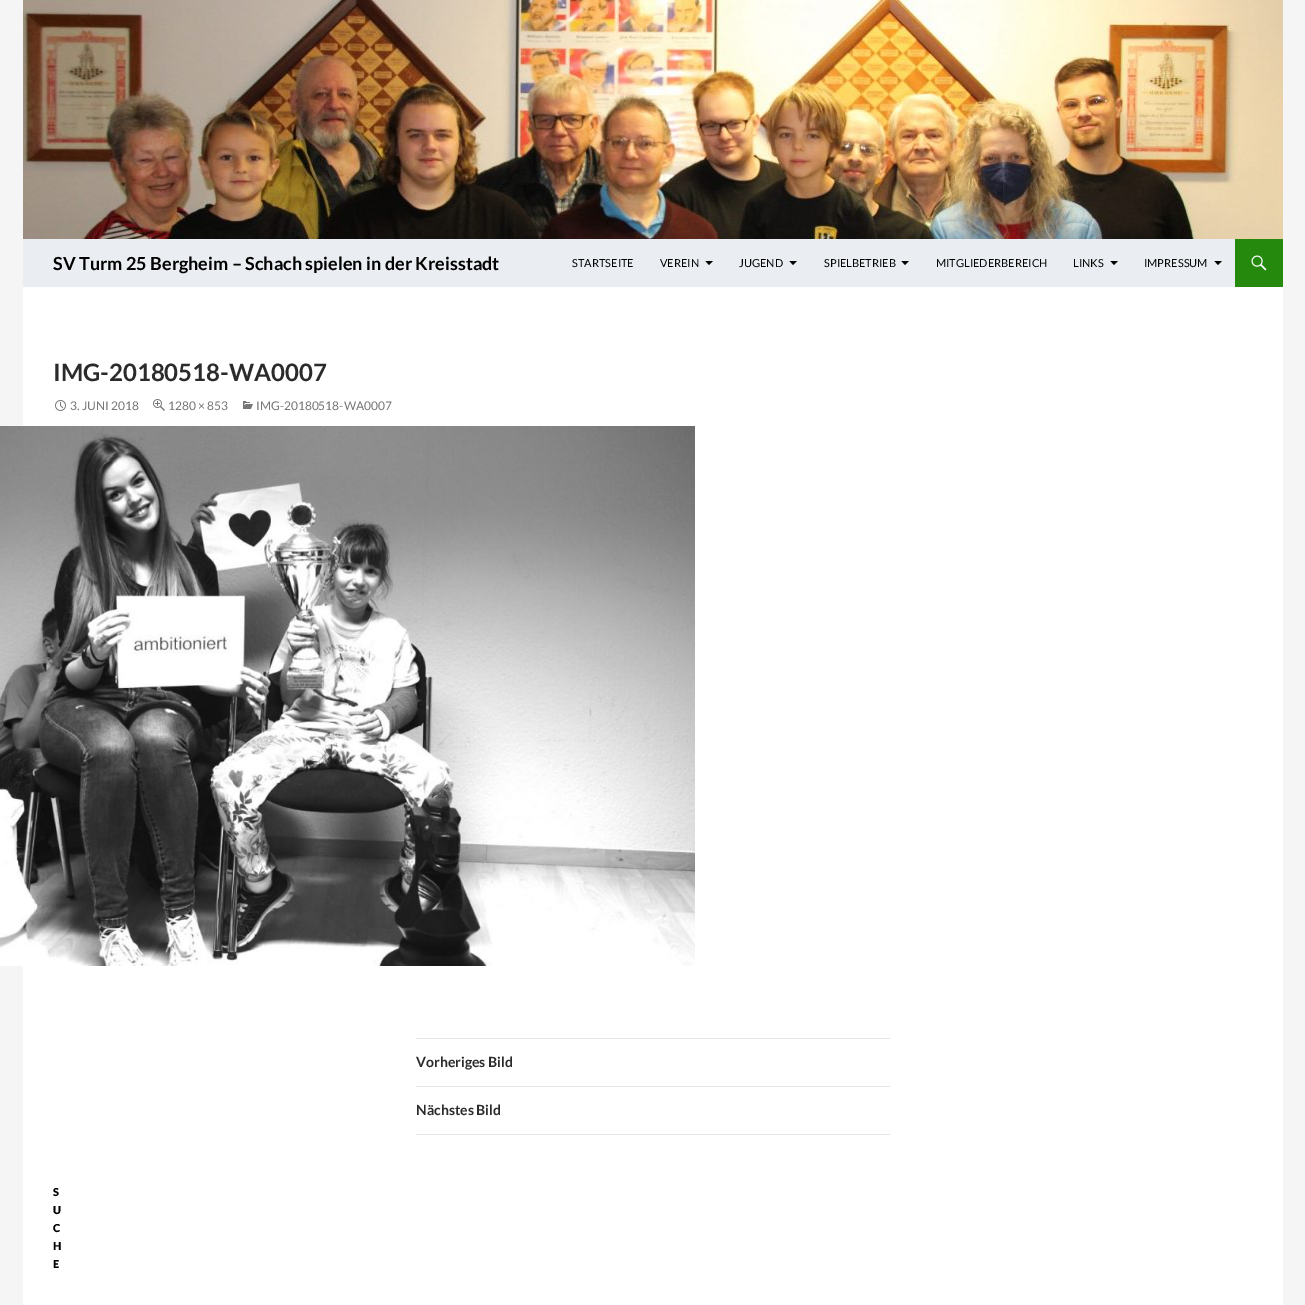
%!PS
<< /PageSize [1305 1305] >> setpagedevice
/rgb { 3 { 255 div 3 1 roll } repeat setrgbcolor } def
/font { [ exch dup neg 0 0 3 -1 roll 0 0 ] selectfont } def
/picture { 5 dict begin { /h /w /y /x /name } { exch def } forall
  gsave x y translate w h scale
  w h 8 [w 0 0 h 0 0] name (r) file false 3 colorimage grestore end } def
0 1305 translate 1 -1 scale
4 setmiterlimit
245 245 245 rgb
0 0 1305 1305 rectfill
255 255 255 rgb
23 287 1260 1018 rectfill
(img/1.rgb) 23 0 1260 239 picture
234 238 242 rgb
23 239 1212 48 rectfill
0 0 0 rgb
705.5 261 moveto 709 265 lineto 713 261 lineto closepath fill
789.5 261 moveto 793 265 lineto 797 261 lineto closepath fill
901.5 261 moveto 905 265 lineto 909 261 lineto closepath fill
1110.5 261 moveto 1114 265 lineto 1118 261 lineto closepath fill
1214.5 261 moveto 1218 265 lineto 1222 261 lineto closepath fill
36 137 13 rgb
1235 239 48 48 rectfill
(img/2.rgb) 1251 255 16 16 picture
(img/3.rgb) 55 400 11 11 picture
(img/4.rgb) 153 399 12 12 picture
(img/5.rgb) 243 401 10 8 picture
(img/6.rgb) 0 426 695 540 picture
[
  [416 1038 474 1 230 230 230]
  [416 1086 474 1 230 230 230]
  [416 1134 474 1 230 230 230]
] { aload pop rgb rectfill } forall
/Lato-Bold 18 font
0 0 0 rgb
53 270 moveto (SV Turm 25 Bergheim – Schach spielen in der Kreisstadt) show
/Lato-Regular 11 font
[
  [(STARTSEITE) 572 267]
  [(VEREIN) 660 267]
  [(JUGEND) 739 267]
  [(SPIELBETRIEB) 824 267]
  [(MITGLIEDERBEREICH) 936 267]
  [(LINKS) 1073 267]
  [(IMPRESSUM) 1144 267]
] { aload pop moveto show } forall
/Lato-Bold 24 font
43 43 43 rgb
53 381 moveto (IMG-20180518-WA0007) show
/Lato-Regular 12 font
118 118 118 rgb
[
  [(3. JUNI 2018) 70 410]
  [(1280 × 853) 168 410]
  [(IMG-20180518-WA0007) 256 410]
] { aload pop moveto show } forall
/Lato-Bold 14 font
43 43 43 rgb
416 1067 moveto (Vorheriges Bild) show
416 1115 moveto (Nächstes Bild) show
/Lato-Black 11 font
0 0 0 rgb
[
  [(S) 53 1196]
  [(U) 53 1214]
  [(C) 53 1232]
  [(H) 53 1250]
  [(E) 53 1268]
] { aload pop moveto show } forall
showpage
